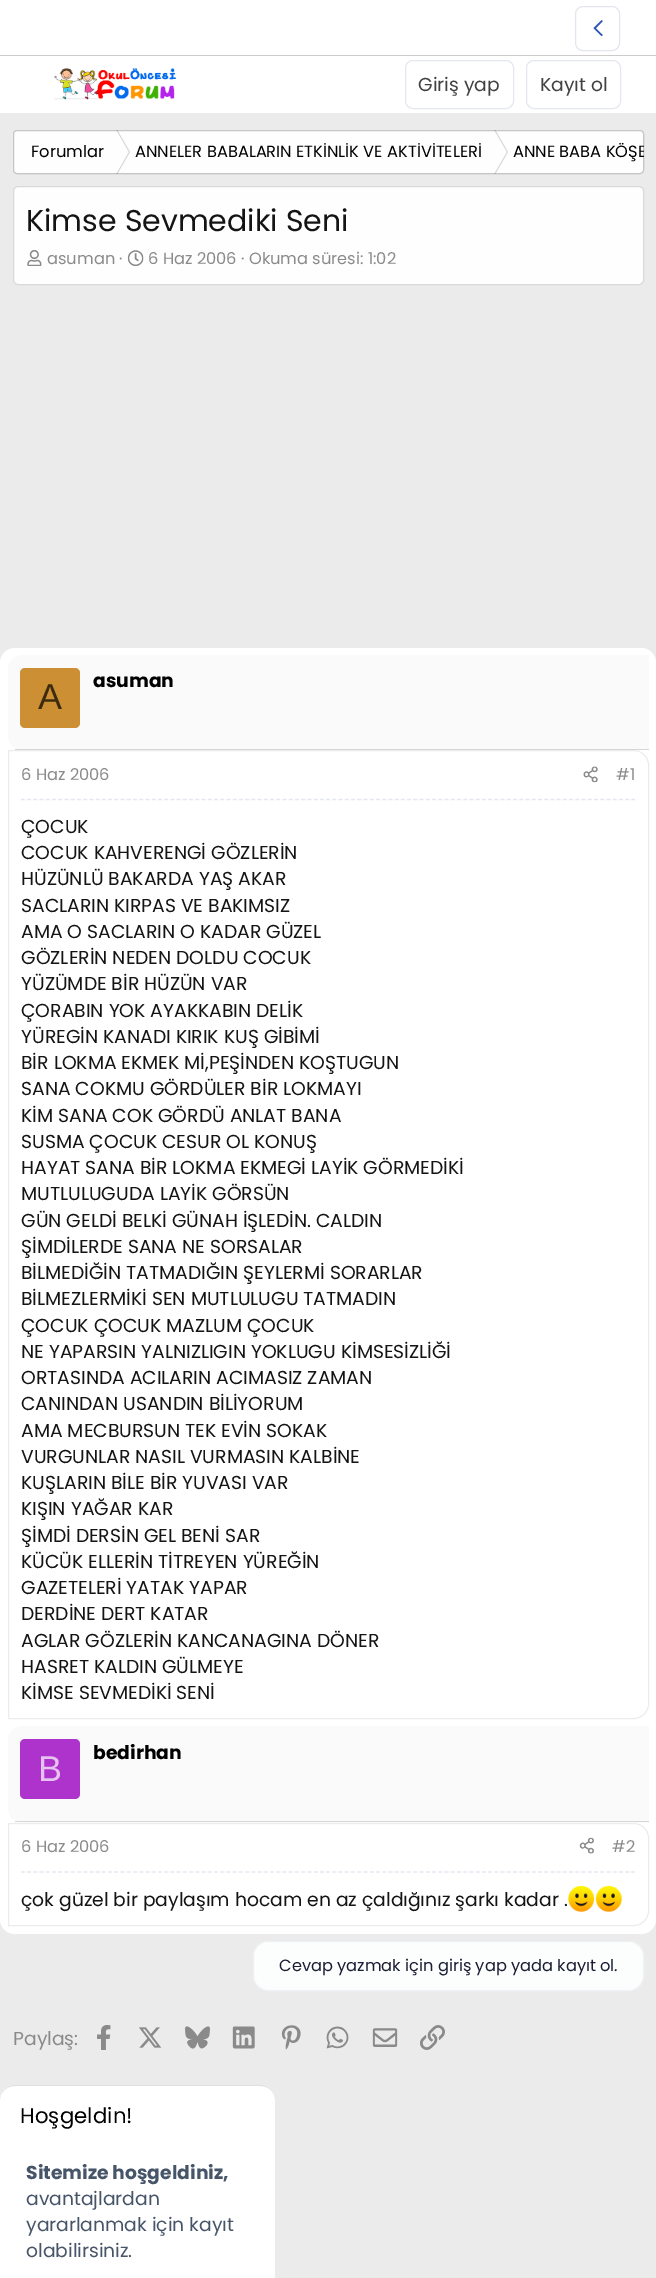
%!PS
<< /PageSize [656 2278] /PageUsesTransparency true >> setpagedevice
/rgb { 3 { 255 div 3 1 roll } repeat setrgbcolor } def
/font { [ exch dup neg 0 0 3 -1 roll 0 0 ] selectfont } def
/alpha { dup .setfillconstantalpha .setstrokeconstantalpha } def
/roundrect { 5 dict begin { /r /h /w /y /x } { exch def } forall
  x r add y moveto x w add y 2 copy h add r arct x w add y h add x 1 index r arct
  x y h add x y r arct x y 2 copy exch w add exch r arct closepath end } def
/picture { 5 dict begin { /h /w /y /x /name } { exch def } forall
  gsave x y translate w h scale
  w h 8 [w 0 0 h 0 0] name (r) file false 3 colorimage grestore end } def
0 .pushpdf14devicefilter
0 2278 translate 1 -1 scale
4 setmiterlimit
235 235 235 rgb
0 0 656 2278 rectfill
255 255 255 rgb
0 0 656 55 rectfill
205 203 203 rgb
0 55 656 1 rectfill
228 230 239 rgb
575.5 6.5 44 44 7.5 roundrect stroke
(img/1.rgb) 593 20 10 17 picture
255 255 255 rgb
0 56 656 57 rectfill
(img/2.rgb) 54 68 122 32 picture
229 231 240 rgb
405.5 60.5 108 48 7.5 roundrect stroke
526.5 60.5 94 48 7.5 roundrect stroke
254 254 254 rgb
13 130 631 44 4 roundrect fill
gsave
13 130 631 44 rectclip
212 216 221 rgb
114.5 127 moveto 115.5 127 lineto 130 152 lineto 129 152 lineto closepath 129 152 moveto 130 152 lineto 115.5 177 lineto 114.5 177 lineto closepath fill
492.5 127 moveto 493.5 127 lineto 508 152 lineto 507 152 lineto closepath 507 152 moveto 508 152 lineto 493.5 177 lineto 492.5 177 lineto closepath fill
grestore
13.5 186.5 630 98 4.5 roundrect gsave fill grestore
217 217 217 rgb
stroke
(img/3.rgb) 27 250 15 16 picture
(img/4.rgb) 127 250 17 16 picture
255 255 255 rgb
0 648 656 1286 15 roundrect fill
250 250 250 rgb
23 655 moveto 649 655 lineto 649 750 lineto 23 750 lineto 14.5 750 8 743.5 8 735 curveto 8 670 lineto 8 661.5 14.5 655 23 655 curveto closepath fill
214 214 214 rgb
15 749 634 1 rectfill
204 143 51 rgb
20 668 60 60 5 roundrect fill
236 236 236 rgb
8.5 750.5 moveto 634 750.5 lineto 642 750.5 648.5 757 648.5 765 curveto 648.5 1704 lineto 648.5 1712 642 1718.5 634 1718.5 curveto 8.5 1718.5 lineto closepath stroke
229 231 240 rgb
1.2 setlinewidth
[3.75 2.48] 0 setdash
21 799.5 moveto 635 799.5 lineto stroke
(img/5.rgb) 583 766 15 17 picture
250 250 250 rgb
23 1726 moveto 649 1726 lineto 649 1823 lineto 23 1823 lineto 14.5 1823 8 1816.5 8 1808 curveto 8 1741 lineto 8 1732.5 14.5 1726 23 1726 curveto closepath fill
214 214 214 rgb
15 1821 634 1 rectfill
173 51 204 rgb
20 1739 60 60 5 roundrect fill
236 236 236 rgb
1 setlinewidth
[] 0 setdash
8.5 1823.5 moveto 634 1823.5 lineto 642 1823.5 648.5 1830 648.5 1838 curveto 648.5 1911 lineto 648.5 1919 642 1925.5 634 1925.5 curveto 8.5 1925.5 lineto closepath stroke
229 231 240 rgb
1.2 setlinewidth
[3.75 2.48] 0 setdash
21 1872 moveto 635 1872 lineto stroke
(img/6.rgb) 579 1837 15 17 picture
(img/7.rgb) 568 1885 27 27 picture
(img/8.rgb) 595 1885 27 27 picture
252 253 253 rgb
253.5 1941.5 390 49 14.5 roundrect gsave fill grestore
239 242 245 rgb
1 setlinewidth
[] 0 setdash
stroke
(img/9.rgb) 97 2025 14 25 picture
(img/10.rgb) 139 2027 23 21 picture
(img/11.rgb) 185 2026 25 23 picture
(img/12.rgb) 232 2026 23 23 picture
(img/13.rgb) 281 2025 20 25 picture
(img/14.rgb) 326 2026 23 23 picture
(img/15.rgb) 372 2028 26 19 picture
(img/16.rgb) 420 2025 25 25 picture
255 255 255 rgb
0 2085 275 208 15 roundrect fill
224 224 224 rgb
15 2085 moveto 7 2085 0 2092 0 2100 curveto 0 2092 7 2086 15 2086 curveto 260 2086 lineto 268 2086 274 2091 275 2099 curveto 274 2091 268 2085 260 2085 curveto closepath fill
/Poppins-Regular 18.75 font
66 65 65 rgb
418 91 moveto (Giriş yap) show
540 91 moveto (Kayıt ol) show
/Poppins-Regular 16.25 font
0 0 0 rgb
31 157 moveto (Forumlar) show
135 157 moveto (ANNELER BABALARIN ETKİNLİK VE AKTİVİTELERİ) show
gsave
13 130 631 44 rectclip
513 157 moveto (ANNE BABA KÖŞE) show
grestore
0.25 alpha
23 30 38 rgb
13.5 130.5 630 43 3.5 roundrect stroke
/Poppins-Regular 30 font
1 alpha
20 20 20 rgb
26 231 moveto (Kimse Sevmediki Seni) show
/Poppins-Regular 16.25 font
138 138 138 rgb
47 264 moveto (asuman ·) show
148 264 moveto (6 Haz 2006 · Okuma süresi: 1:02) show
/Poppins-Bold 18.75 font
0 0 0 rgb
93 687 moveto (asuman) show
/LiberationSans-Regular 36 font
61 43 15 rgb
38 709 moveto (A) show
/Poppins-Regular 16.25 font
138 138 138 rgb
21 780 moveto (6 Haz 2006) show
616 780 moveto (#1) show
/Poppins-Regular 18.75 font
20 20 20 rgb
[
  [(ÇOCUK) 21 833]
  [(COCUK KAHVERENGİ GÖZLERİN) 21 859]
  [(HÜZÜNLÜ BAKARDA YAŞ AKAR) 21 885]
  [(SACLARIN KIRPAS VE BAKIMSIZ) 21 912]
  [(AMA O SACLARIN O KADAR GÜZEL) 21 938]
  [(GÖZLERİN NEDEN DOLDU COCUK) 21 964]
  [(YÜZÜMDE BİR HÜZÜN VAR) 21 990]
  [(ÇORABIN YOK AYAKKABIN DELİK) 21 1017]
  [(YÜREGİN KANADI KIRIK KUŞ GİBİMİ) 21 1043]
  [(BİR LOKMA EKMEK Mİ,PEŞİNDEN KOŞTUGUN) 21 1069]
  [(SANA COKMU GÖRDÜLER BİR LOKMAYI) 21 1095]
  [(KİM SANA COK GÖRDÜ ANLAT BANA) 21 1122]
  [(SUSMA ÇOCUK CESUR OL KONUŞ) 21 1148]
  [(HAYAT SANA BİR LOKMA EKMEGİ LAYİK GÖRMEDİKİ) 21 1174]
  [(MUTLULUGUDA LAYİK GÖRSÜN) 21 1200]
  [(GÜN GELDİ BELKİ GÜNAH İŞLEDİN. CALDIN) 21 1227]
  [(ŞİMDİLERDE SANA NE SORSALAR) 21 1253]
  [(BİLMEDİĞİN TATMADIĞIN ŞEYLERMİ SORARLAR) 21 1279]
  [(BİLMEZLERMİKİ SEN MUTLULUGU TATMADIN) 21 1305]
  [(ÇOCUK ÇOCUK MAZLUM ÇOCUK) 21 1332]
  [(NE YAPARSIN YALNIZLIGIN YOKLUGU KİMSESİZLİĞİ) 21 1358]
  [(ORTASINDA ACILARIN ACIMASIZ ZAMAN) 21 1384]
  [(CANINDAN USANDIN BİLİYORUM) 21 1410]
  [(AMA MECBURSUN TEK EVİN SOKAK) 21 1437]
  [(VURGUNLAR NASIL VURMASIN KALBİNE) 21 1463]
  [(KUŞLARIN BİLE BİR YUVASI VAR) 21 1489]
  [(KIŞIN YAĞAR KAR) 21 1515]
  [(ŞİMDİ DERSİN GEL BENİ SAR) 21 1542]
  [(KÜCÜK ELLERİN TİTREYEN YÜREĞİN) 21 1568]
  [(GAZETELERİ YATAK YAPAR) 21 1594]
  [(DERDİNE DERT KATAR) 21 1620]
  [(AGLAR GÖZLERİN KANCANAGINA DÖNER) 21 1647]
  [(HASRET KALDIN GÜLMEYE) 21 1673]
  [(KİMSE SEVMEDİKİ SENİ) 21 1699]
] { aload pop moveto show } forall
/Poppins-Bold 18.75 font
0 0 0 rgb
93 1759 moveto (bedirhan) show
/LiberationSans-Regular 36 font
231 194 240 rgb
38 1781 moveto (B) show
/Poppins-Regular 16.25 font
138 138 138 rgb
21 1852 moveto (6 Haz 2006) show
612 1852 moveto (#2) show
/Poppins-Regular 18.75 font
20 20 20 rgb
21 1906 moveto (çok güzel bir paylaşım hocam en az çaldığınız şarkı kadar .) show
/Poppins-Regular 16.25 font
25 29 52 rgb
279 1971 moveto (Cevap yazmak için giriş yap yada kayıt ol.) show
/Poppins-Regular 18.75 font
138 138 138 rgb
13 2045 moveto (Paylaş:) show
/Poppins-Regular 21.25 font
0 0 0 rgb
20 2123 moveto 0.1 0 (Hoşgeldin!) ashow
/Poppins-Bold 18.75 font
71 85 105 rgb
26 2179 moveto (Sitemize hoşgeldiniz,) show
/Poppins-Regular 18.75 font
[
  [(avantajlardan) 26 2205]
  [(yararlanmak için kayıt) 26 2231]
  [(olabilirsiniz.) 26 2257]
] { aload pop moveto show } forall
.poppdf14devicefilter showpage
